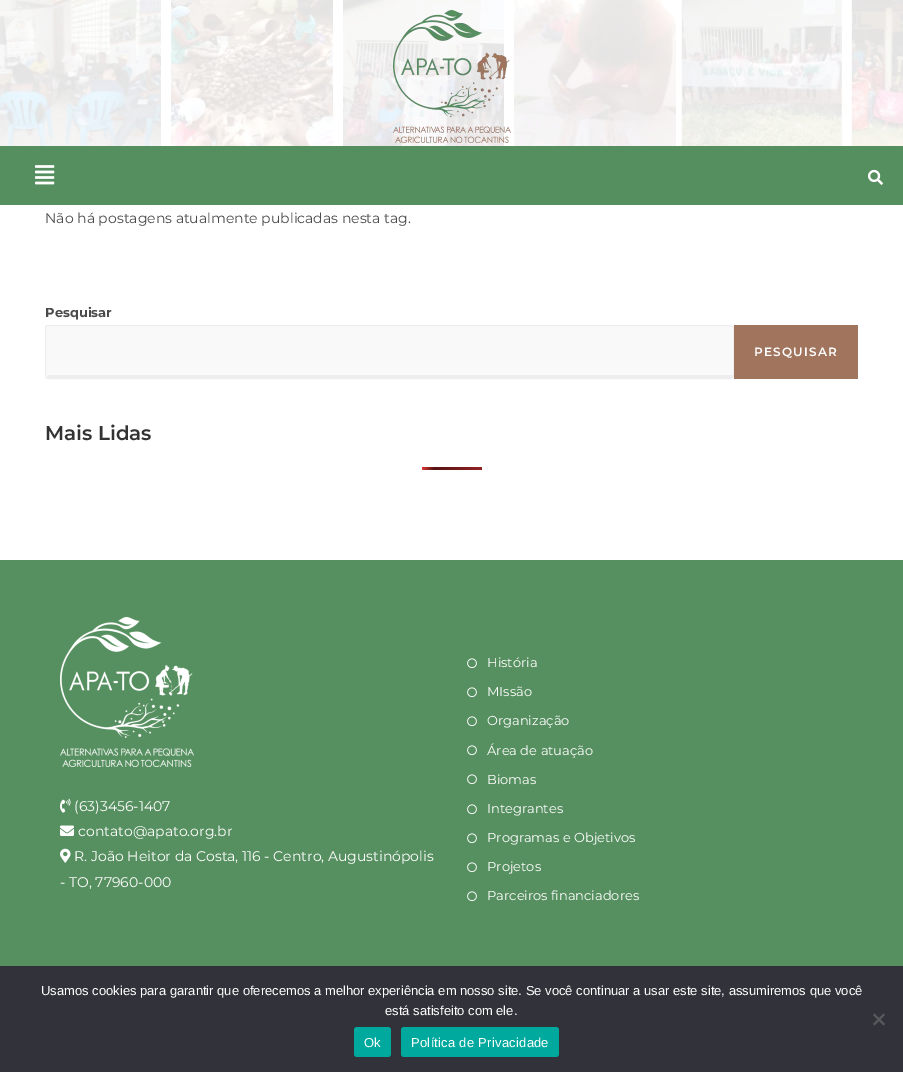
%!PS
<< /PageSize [903 1072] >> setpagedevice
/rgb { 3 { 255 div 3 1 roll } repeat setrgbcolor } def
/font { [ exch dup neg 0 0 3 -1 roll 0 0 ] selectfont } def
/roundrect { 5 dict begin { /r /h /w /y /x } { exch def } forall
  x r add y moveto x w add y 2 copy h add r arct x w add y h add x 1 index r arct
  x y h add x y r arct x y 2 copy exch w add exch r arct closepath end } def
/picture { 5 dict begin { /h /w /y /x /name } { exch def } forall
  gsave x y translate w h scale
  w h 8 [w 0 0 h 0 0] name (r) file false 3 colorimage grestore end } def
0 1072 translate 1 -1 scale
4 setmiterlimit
255 255 255 rgb
0 0 903 1072 rectfill
(img/1.rgb) 0 0 903 146 picture
(img/2.rgb) 393 10 118 133 picture
85 143 95 rgb
0 146 903 59 rectfill
(img/3.rgb) 35 165 20 20 picture
(img/4.rgb) 868 169 15 16 picture
249 249 249 rgb
48 326 moveto 731 326 lineto 732 326 733 327 733 328 curveto 733 375 lineto 46 375 lineto 46 328 lineto 46 327 47 326 48 326 curveto closepath fill
238 238 238 rgb
45.5 325.5 688 53 2.5 roundrect stroke
47 375 686 3 rectfill
161 117 93 rgb
734 325 124 54 rectfill
gsave 422 467 60 3 1.5 roundrect clip newpath
<< /ShadingType 2 /ColorSpace /DeviceRGB /Coords [422 469 542 469] /Extend [true true] /Function << /FunctionType 3 /Domain [0 1] /Functions [<< /FunctionType 2 /Domain [0 1] /C0 [0.867 0.216 0.216] /C1 [0.341 0.075 0.075] /N 1 >> << /FunctionType 2 /Domain [0 1] /C0 [0.341 0.075 0.075] /C1 [0.867 0.216 0.216] /N 1 >>] /Bounds [0.1] /Encode [0 1 0 1] >> >> shfill grestore
87 144 96 rgb
0 560 903 406 rectfill
(img/5.rgb) 60 617 134 150 picture
(img/6.rgb) 60 798 11 15 picture
(img/7.rgb) 60 825 14 11 picture
(img/8.rgb) 60 848 11 15 picture
(img/9.rgb) 467 658 10 11 picture
(img/9.rgb) 467 687 10 11 picture
(img/9.rgb) 467 716 10 11 picture
(img/9.rgb) 467 745 10 11 picture
(img/9.rgb) 467 774 10 11 picture
(img/9.rgb) 467 804 10 11 picture
(img/9.rgb) 467 833 10 11 picture
(img/9.rgb) 467 862 10 11 picture
(img/9.rgb) 467 891 10 11 picture
50 50 58 rgb
0 966 903 106 rectfill
89 89 93 rgb
883.5 1013.5 moveto 885 1015 lineto 874.5 1025.5 lineto 873 1024 lineto closepath fill
873 1015 moveto 874.5 1013.5 lineto 885 1024 lineto 883.5 1025.5 lineto closepath fill
0 169 157 rgb
354 1027 37 30 3 roundrect fill
401 1027 158 30 3 roundrect fill
/Montserrat-Regular 14 font
74 74 74 rgb
45 223 moveto (Não há postagens atualmente publicadas nesta tag.) show
/Montserrat-Bold 13 font
45 317 moveto (Pesquisar) show
/Montserrat-SemiBold 12 font
255 255 255 rgb
754 356 moveto 1.25 0 (PESQUISAR) ashow
/Montserrat-SemiBold 20 font
51 51 51 rgb
45 440 moveto (Mais Lidas) show
/Montserrat-Regular 14 font
255 255 255 rgb
[
  [(\(63\)3456-1407) 74 811]
  [(contato@apato.org.br) 78 836]
  [(R. João Heitor da Costa, 116 - Centro, Augustinópolis) 74 861]
  [(- TO, 77960-000) 60 887]
] { aload pop moveto show } forall
/Montserrat-Regular 13 font
[
  [(História) 487 667]
  [(MIssão) 487 696]
  [(Organização) 487 725]
  [(Área de atuação) 487 755]
  [(Biomas) 487 784]
  [(Integrantes) 487 813]
  [(Programas e Objetivos) 487 842]
  [(Projetos) 487 871]
  [(Parceiros financiadores) 487 900]
] { aload pop moveto show } forall
/LiberationSans-Regular 13 font
41 995 moveto (Usamos cookies para garantir que oferecemos a melhor experiência em nosso site. Se você continuar a usar este site, assumiremos que você) show
385 1015 moveto (está satisfeito com ele.) show
364 1047 moveto 0.25 0 (Ok) ashow
411 1047 moveto 0.25 0 (Política de Privacidade) ashow
showpage
